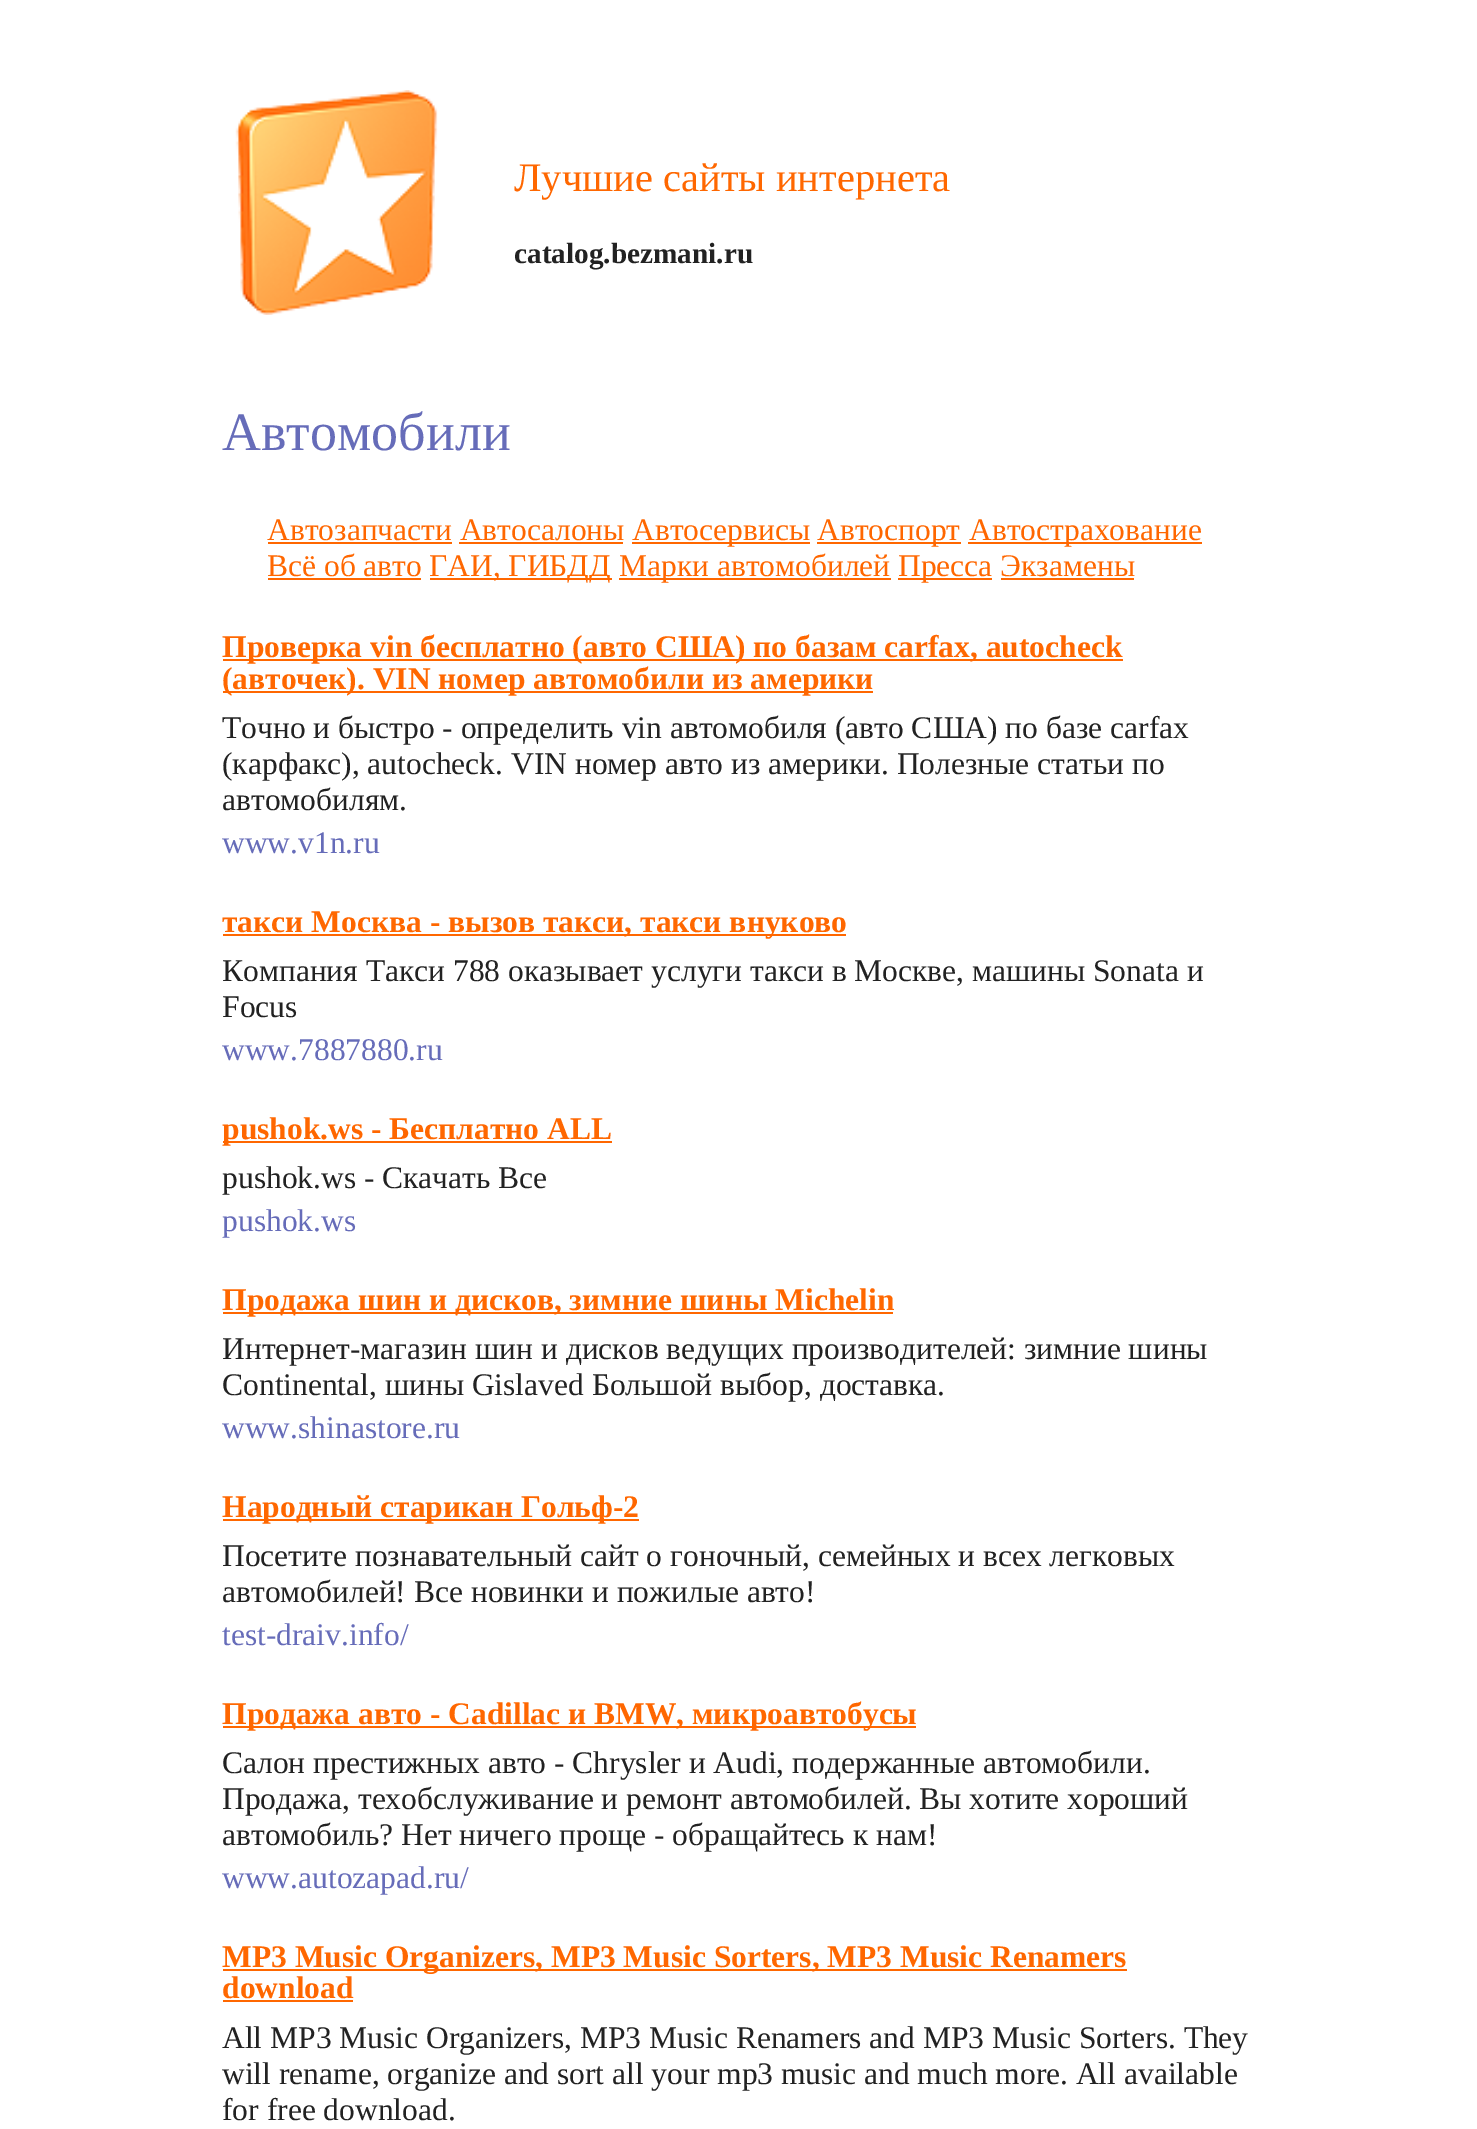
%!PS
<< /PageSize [1477 2129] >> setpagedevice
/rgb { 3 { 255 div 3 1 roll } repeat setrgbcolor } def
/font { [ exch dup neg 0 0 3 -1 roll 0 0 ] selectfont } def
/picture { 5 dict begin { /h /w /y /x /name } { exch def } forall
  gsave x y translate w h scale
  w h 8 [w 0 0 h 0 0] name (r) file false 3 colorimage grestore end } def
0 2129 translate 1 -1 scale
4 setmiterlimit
255 255 255 rgb
0 0 1477 2129 rectfill
(img/1.rgb) 235 90 203 225 picture
[
  [268 542 184 2 255 103 0]
  [632 542 178 2 255 103 0]
  [817 542 144 2 255 103 0]
  [968 542 234 2 255 103 0]
  [459 542 164 2 255 103 0]
  [268 578 153 2 255 103 0]
  [430 578 182 2 255 103 0]
  [619 578 272 2 255 103 0]
  [898 578 94 2 255 103 0]
  [1001 578 133 2 255 103 0]
  [223 659 900 2 255 103 0]
  [223 691 650 2 255 103 0]
  [223 934 623 2 255 103 0]
  [223 1141 389 2 255 103 0]
  [223 1312 670 2 255 103 0]
  [223 1519 416 2 255 103 0]
  [223 1726 693 2 255 103 0]
  [223 1969 904 2 255 103 0]
  [223 2000 130 2 255 103 0]
] { aload pop rgb rectfill } forall
/LiberationSerif-Regular 40.5 font
514 191 moveto (Лучшие сайты интернета) show
/LiberationSerif-Bold 29.25 font
34 34 34 rgb
514 263 moveto (catalog.bezmani.ru) show
/LiberationSerif-Regular 54 font
102 108 185 rgb
222 450 moveto (Автомобили) show
/LiberationSerif-Regular 31.5 font
255 103 0 rgb
[
  [(Автозапчасти Автосалоны) 267 540]
  [(Автосервисы) 632 540]
  [(Автоспорт) 817 540]
  [(Автострахование) 969 540]
  [(Всё об авто) 267 576]
  [(ГАИ, ГИБДД) 429 576]
  [(Марки автомобилей) 619 576]
  [(Пресса Экзамены) 898 576]
] { aload pop moveto show } forall
/LiberationSerif-Bold 31.5 font
222 657 moveto (Проверка vin бесплатно \(авто США\) по базам carfax, autocheck) show
222 689 moveto (\(авточек\). VIN номер автомобили из америки) show
/LiberationSerif-Regular 31.5 font
34 34 34 rgb
[
  [(Точно и быстро - определить vin автомобиля \(авто США\) по базе carfax) 222 738]
  [(\(карфакс\), autocheck. VIN номер авто из америки. Полезные статьи по) 222 774]
  [(автомобилям.) 222 810]
] { aload pop moveto show } forall
102 108 185 rgb
222 853 moveto (www.v1n.ru) show
/LiberationSerif-Bold 31.5 font
255 103 0 rgb
222 932 moveto (такси Москва - вызов такси, такси внуково) show
/LiberationSerif-Regular 31.5 font
34 34 34 rgb
222 981 moveto (Компания Такси 788 оказывает услуги такси в Москве, машины Sonata и) show
222 1017 moveto (Focus) show
102 108 185 rgb
222 1060 moveto (www.7887880.ru) show
/LiberationSerif-Bold 31.5 font
255 103 0 rgb
222 1139 moveto (pushok.ws - Бесплатно ALL) show
/LiberationSerif-Regular 31.5 font
34 34 34 rgb
222 1188 moveto (pushok.ws - Скачать Все) show
102 108 185 rgb
222 1231 moveto (pushok.ws) show
/LiberationSerif-Bold 31.5 font
255 103 0 rgb
222 1310 moveto (Продажа шин и дисков, зимние шины Michelin) show
/LiberationSerif-Regular 31.5 font
34 34 34 rgb
222 1359 moveto (Интернет-магазин шин и дисков ведущих производителей: зимние шины) show
222 1395 moveto (Continental, шины Gislaved Большой выбор, доставка.) show
102 108 185 rgb
222 1438 moveto (www.shinastore.ru) show
/LiberationSerif-Bold 31.5 font
255 103 0 rgb
222 1517 moveto (Народный старикан Гольф-2) show
/LiberationSerif-Regular 31.5 font
34 34 34 rgb
222 1566 moveto (Посетите познавательный сайт о гоночный, семейных и всех легковых) show
222 1602 moveto (автомобилей! Все новинки и пожилые авто!) show
102 108 185 rgb
222 1645 moveto (test-draiv.info/) show
/LiberationSerif-Bold 31.5 font
255 103 0 rgb
222 1724 moveto (Продажа авто - Cadillac и BMW, микроавтобусы) show
/LiberationSerif-Regular 31.5 font
34 34 34 rgb
[
  [(Салон престижных авто - Chrysler и Audi, подержанные автомобили.) 222 1773]
  [(Продажа, техобслуживание и ремонт автомобилей. Вы хотите хороший) 222 1809]
  [(автомобиль? Нет ничего проще - обращайтесь к нам!) 222 1845]
] { aload pop moveto show } forall
102 108 185 rgb
222 1888 moveto (www.autozapad.ru/) show
/LiberationSerif-Bold 31.5 font
255 103 0 rgb
222 1967 moveto (MP3 Music Organizers, MP3 Music Sorters, MP3 Music Renamers) show
222 1998 moveto (download) show
/LiberationSerif-Regular 31.5 font
34 34 34 rgb
[
  [(All MP3 Music Organizers, MP3 Music Renamers and MP3 Music Sorters. They) 222 2048]
  [(will rename, organize and sort all your mp3 music and much more. All available) 222 2084]
  [(for free download.) 222 2120]
] { aload pop moveto show } forall
showpage
